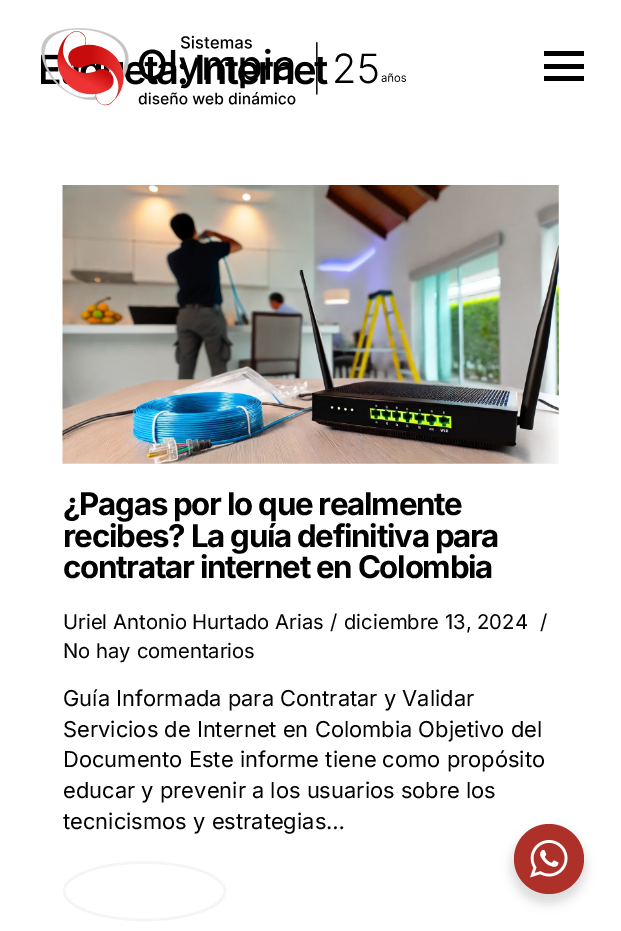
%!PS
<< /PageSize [621 931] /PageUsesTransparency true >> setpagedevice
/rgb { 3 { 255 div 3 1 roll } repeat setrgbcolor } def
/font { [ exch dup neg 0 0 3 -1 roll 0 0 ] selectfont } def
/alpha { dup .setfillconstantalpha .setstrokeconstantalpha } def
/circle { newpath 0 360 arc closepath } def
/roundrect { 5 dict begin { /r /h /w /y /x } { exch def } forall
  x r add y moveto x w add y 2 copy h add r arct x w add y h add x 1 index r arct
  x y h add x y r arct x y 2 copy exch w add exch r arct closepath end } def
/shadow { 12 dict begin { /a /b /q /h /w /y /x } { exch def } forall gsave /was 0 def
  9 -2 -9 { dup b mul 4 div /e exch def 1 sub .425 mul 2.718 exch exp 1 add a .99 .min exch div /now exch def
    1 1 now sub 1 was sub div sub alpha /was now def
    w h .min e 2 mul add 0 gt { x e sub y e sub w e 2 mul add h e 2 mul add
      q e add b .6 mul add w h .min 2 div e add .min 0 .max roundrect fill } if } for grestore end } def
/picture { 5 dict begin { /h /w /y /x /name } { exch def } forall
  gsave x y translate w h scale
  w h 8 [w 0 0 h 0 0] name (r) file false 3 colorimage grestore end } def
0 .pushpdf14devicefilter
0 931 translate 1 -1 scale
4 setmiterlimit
255 255 255 rgb
0 0 621 931 rectfill
[
  [544 76 40 5 0 0 0]
  [544 51 40 5 0 0 0]
  [544 64 40 5 0 0 0]
] { aload pop rgb rectfill } forall
(img/2.rgb) 62 185 497 279 picture
245 245 245 rgb
2.5 setlinewidth
144.5 862.5 moveto 189 862.5 225 875.5 225 891 curveto 225 907 189 920 144.5 920 curveto 100 920 64 907 64 891 curveto 64 875.5 100 862.5 144.5 862.5 curveto closepath stroke
0 0 0 rgb
511 829 75 75 37.5 5 0.14 shadow
173 48 41 rgb
549 859 35 circle fill
(img/3.rgb) 530 840 38 38 picture
/Inter-SemiBold 40 font
0 0 0 rgb
194 84 moveto -2.5 0 (Internet) ashow
(img/1.rgb) 41 28 365 78 picture
/Inter-Bold 31.25 font
63 515 moveto -1.25 0 (¿Pagas por lo que realmente) ashow
63 547 moveto -1.25 0 (recibes? La guía definitiva para) ashow
63 578 moveto -1.25 0 (contratar internet en Colombia) ashow
/Inter-Regular 20.25 font
[
  [(Uriel Antonio Hurtado Arias) 63 629]
  [(/) 330 629]
  [(diciembre 13, 2024) 344 629]
  [(/) 540 629]
  [(No hay comentarios) 63 658]
] { aload pop moveto show } forall
/Inter-Regular 21.9 font
[
  [(Guía Informada para Contratar y Validar) 63 706]
  [(Servicios de Internet en Colombia Objetivo del) 63 737]
  [(Documento Este informe tiene como propósito) 63 767]
  [(educar y prevenir a los usuarios sobre los) 63 798]
  [(tecnicismos y estrategias…) 63 829]
] { aload pop moveto show } forall
.poppdf14devicefilter showpage
